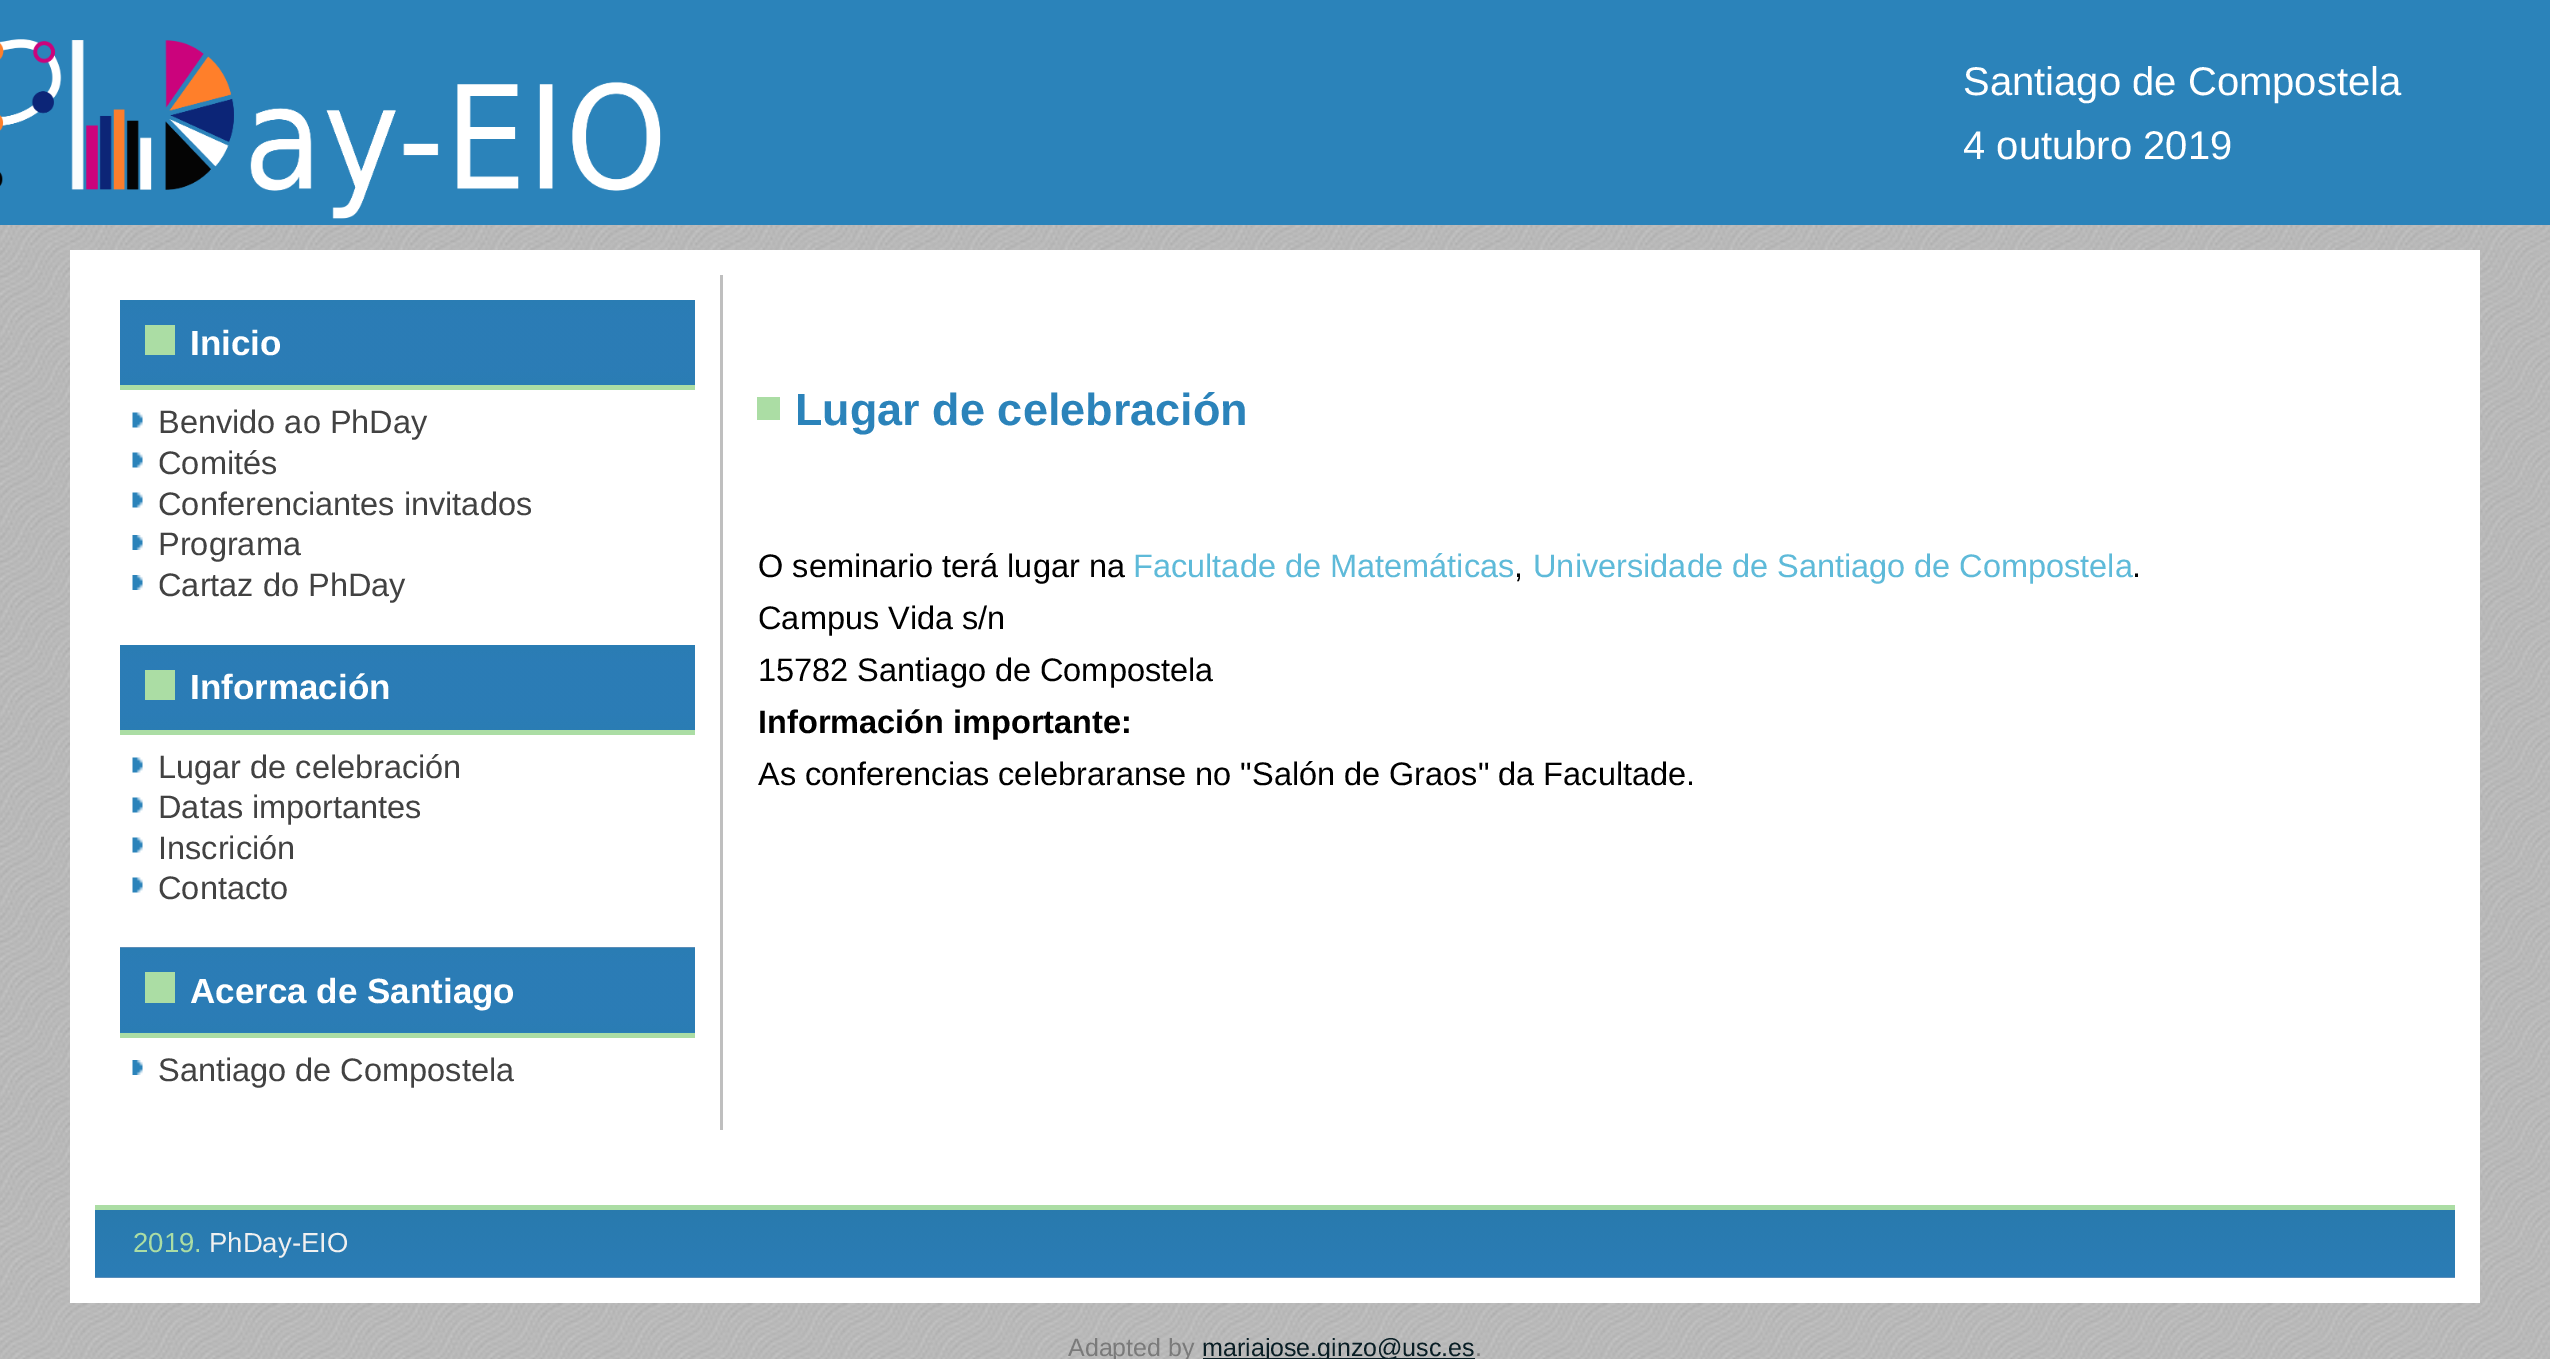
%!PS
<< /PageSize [2550 1359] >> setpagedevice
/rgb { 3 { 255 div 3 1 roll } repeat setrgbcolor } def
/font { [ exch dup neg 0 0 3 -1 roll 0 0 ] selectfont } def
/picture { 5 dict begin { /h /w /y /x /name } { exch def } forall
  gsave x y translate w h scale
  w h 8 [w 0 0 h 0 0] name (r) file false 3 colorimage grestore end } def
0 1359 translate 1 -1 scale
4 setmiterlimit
255 255 255 rgb
0 0 2550 1359 rectfill
(img/1.rgb) 0 225 2550 1134 picture
43 131 186 rgb
0 0 2550 225 rectfill
(img/2.rgb) 0 39 661 180 picture
255 255 255 rgb
70 250 2410 1053 rectfill
191 191 191 rgb
720 275 3 855 rectfill
(img/3.rgb) 120 300 575 85 picture
171 221 164 rgb
120 385 575 5 rectfill
145 325 30 30 rectfill
(img/4.rgb) 132 412 11 16 picture
(img/4.rgb) 132 452 11 16 picture
(img/4.rgb) 132 492 11 16 picture
(img/5.rgb) 132 535 11 15 picture
(img/5.rgb) 132 575 11 15 picture
(img/6.rgb) 120 645 575 85 picture
120 730 575 5 rectfill
145 670 30 30 rectfill
(img/4.rgb) 132 757 11 16 picture
(img/4.rgb) 132 797 11 16 picture
(img/4.rgb) 132 837 11 16 picture
(img/4.rgb) 132 877 11 16 picture
(img/7.rgb) 120 947 575 86 picture
120 1033 575 5 rectfill
145 972 30 31 rectfill
(img/5.rgb) 132 1060 11 15 picture
757 397 23 23 rectfill
(img/8.rgb) 95 1210 2360 68 picture
95 1205 2360 5 rectfill
9 30 37 rgb
1203 1358 272 1 rectfill
/LiberationSans-Regular 40 font
255 255 255 rgb
1963 95 moveto (Santiago de Compostela) show
1963 159 moveto (4 outubro 2019) show
/LiberationSans-Bold 35 font
190 355 moveto (Inicio) show
/LiberationSans-Regular 32.5 font
66 66 66 rgb
[
  [(Benvido ao PhDay) 158 433]
  [(Comités) 158 474]
  [(Conferenciantes invitados) 158 515]
  [(Programa) 158 555]
  [(Cartaz do PhDay) 158 596]
] { aload pop moveto show } forall
/LiberationSans-Bold 35 font
255 255 255 rgb
190 699 moveto (Información) show
/LiberationSans-Regular 32.5 font
66 66 66 rgb
[
  [(Lugar de celebración) 158 778]
  [(Datas importantes) 158 818]
  [(Inscrición) 158 859]
  [(Contacto) 158 899]
] { aload pop moveto show } forall
/LiberationSans-Bold 35 font
255 255 255 rgb
190 1003 moveto (Acerca de Santiago) show
/LiberationSans-Regular 32.5 font
66 66 66 rgb
158 1081 moveto (Santiago de Compostela) show
/LiberationSans-Bold 45 font
43 131 186 rgb
795 425 moveto (Lugar de celebración) show
/LiberationSans-Regular 32.5 font
0 0 0 rgb
758 577 moveto (O seminario terá lugar na) show
94 186 217 rgb
1133 577 moveto (Facultade de Matemáticas) show
0 0 0 rgb
1514 577 moveto (,) show
94 186 217 rgb
1533 577 moveto (Universidade de Santiago de Compostela) show
0 0 0 rgb
[
  [(.) 2132 577]
  [(Campus Vida s/n) 758 629]
  [(15782 Santiago de Compostela) 758 681]
] { aload pop moveto show } forall
/LiberationSans-Bold 32.5 font
758 733 moveto (Información importante:) show
/LiberationSans-Regular 32.5 font
758 785 moveto (As conferencias celebraranse no "Salón de Graos" da Facultade.) show
/LiberationSans-Regular 27.5 font
171 221 164 rgb
133 1252 moveto (2019.) show
240 240 240 rgb
209 1252 moveto (PhDay-EIO) show
/LiberationSans-Regular 25 font
122 122 122 rgb
1068 1356 moveto (Adapted by) show
9 30 37 rgb
1202 1356 moveto (mariajose.ginzo@usc.es) show
122 122 122 rgb
1475 1356 moveto (.) show
showpage
